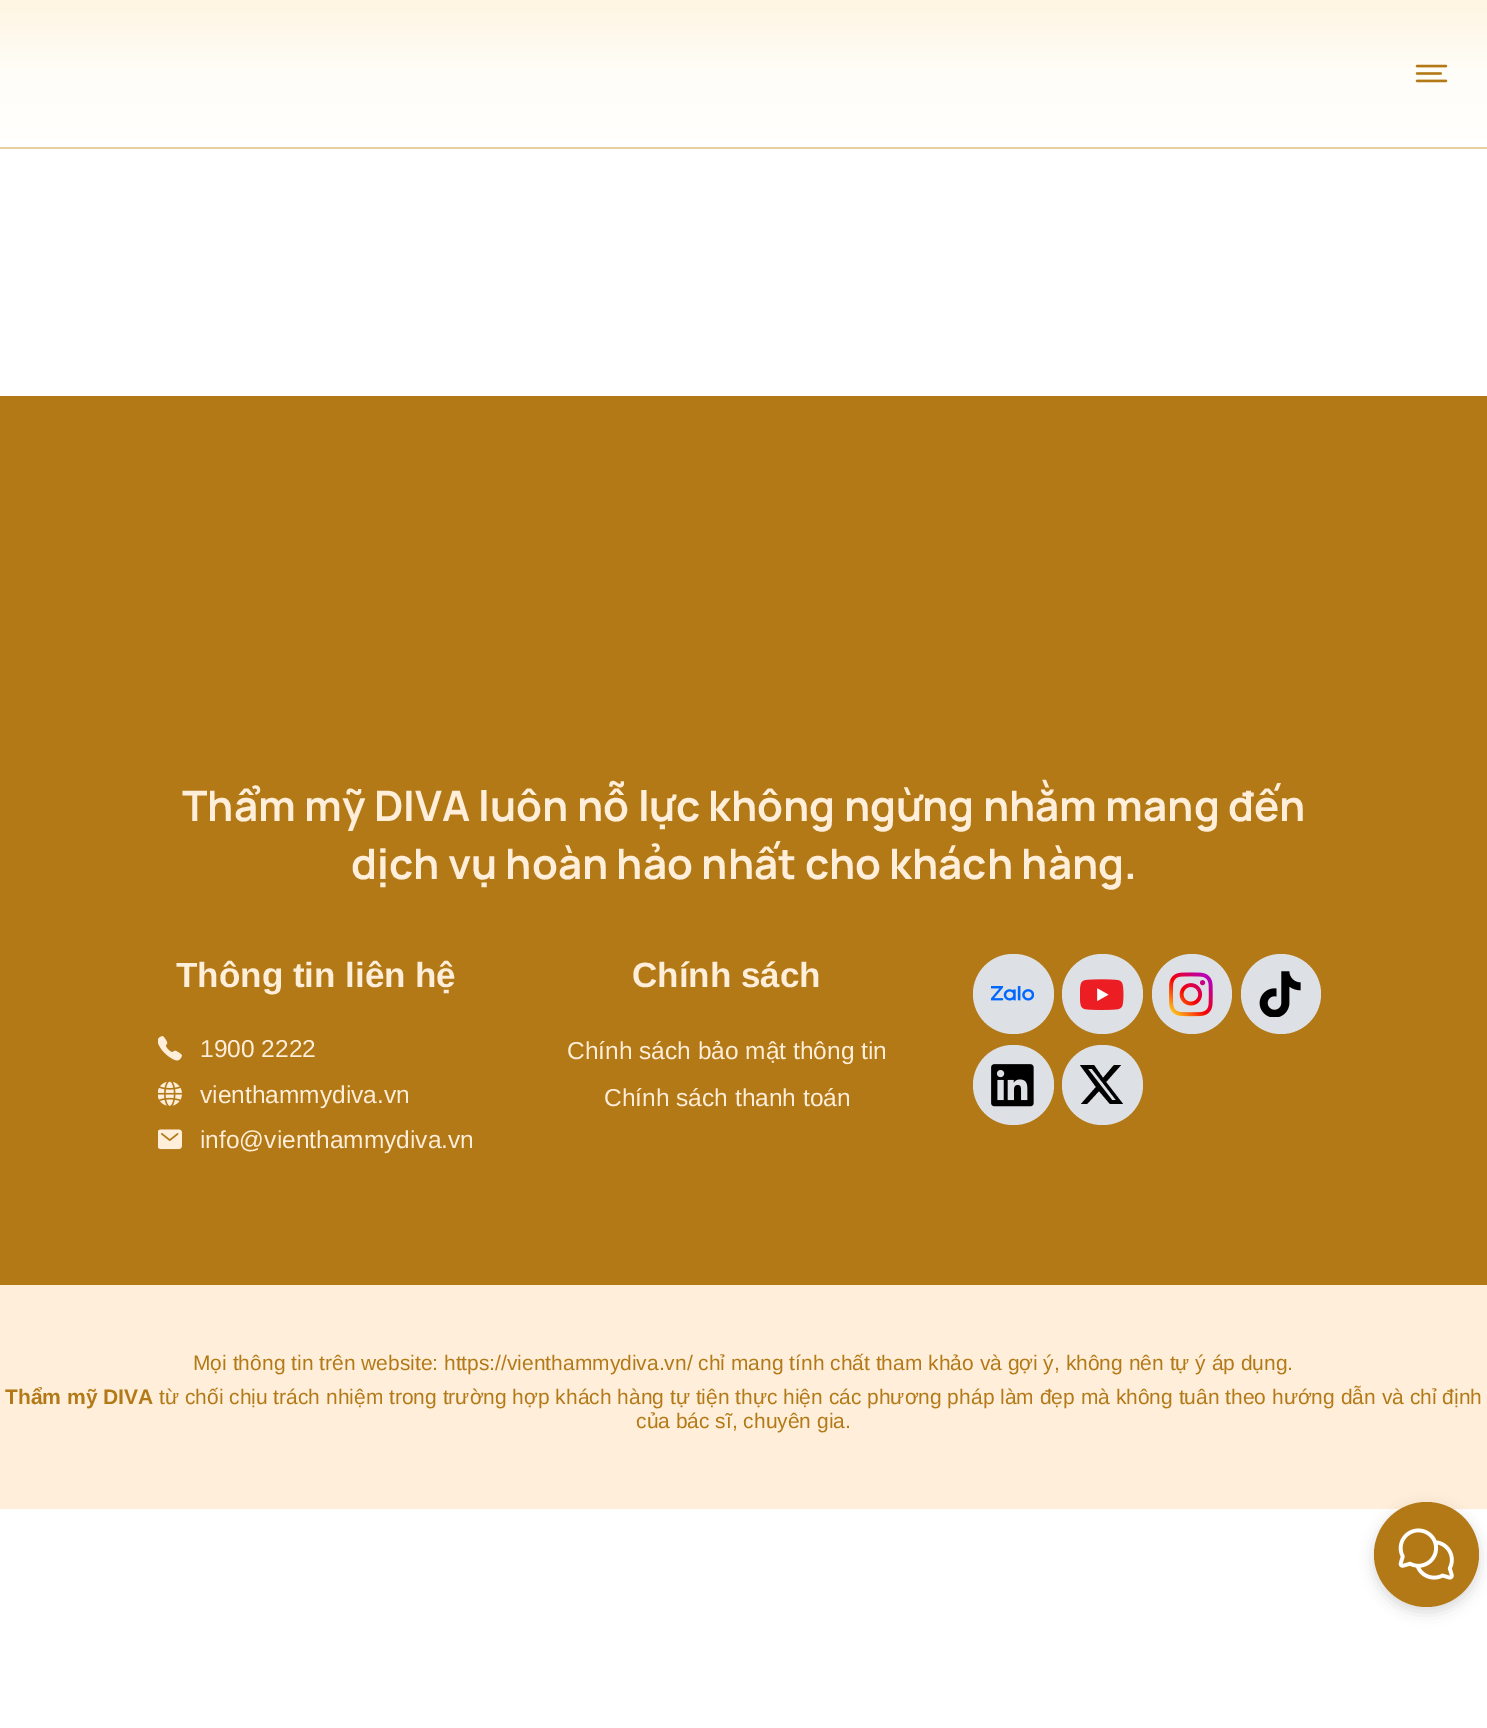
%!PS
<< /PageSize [1487 1728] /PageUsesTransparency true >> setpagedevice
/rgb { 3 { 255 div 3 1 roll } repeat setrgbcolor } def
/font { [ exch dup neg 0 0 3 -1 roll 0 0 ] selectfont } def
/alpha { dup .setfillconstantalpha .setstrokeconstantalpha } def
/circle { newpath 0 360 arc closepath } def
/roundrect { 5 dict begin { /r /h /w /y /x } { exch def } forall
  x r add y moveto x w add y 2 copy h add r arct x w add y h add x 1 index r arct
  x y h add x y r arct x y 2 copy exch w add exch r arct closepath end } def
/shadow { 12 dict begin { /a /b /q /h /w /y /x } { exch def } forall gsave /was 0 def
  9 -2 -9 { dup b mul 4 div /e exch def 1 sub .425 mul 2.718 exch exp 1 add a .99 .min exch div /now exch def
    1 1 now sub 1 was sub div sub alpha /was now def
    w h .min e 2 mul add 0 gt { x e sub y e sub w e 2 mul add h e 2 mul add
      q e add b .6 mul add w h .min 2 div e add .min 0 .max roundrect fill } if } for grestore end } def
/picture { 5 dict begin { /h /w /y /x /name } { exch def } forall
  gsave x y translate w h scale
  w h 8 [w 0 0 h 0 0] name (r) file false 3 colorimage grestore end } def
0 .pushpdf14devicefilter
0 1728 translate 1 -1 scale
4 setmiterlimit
255 255 255 rgb
0 0 1487 1728 rectfill
gsave 0 0 moveto 1487 0 lineto 1487 140 lineto 0 140 lineto closepath clip newpath
<< /ShadingType 2 /ColorSpace /DeviceRGB /Coords [744 0 744 147] /Extend [true true] /Function << /FunctionType 3 /Domain [0 1] /Functions [<< /FunctionType 2 /Domain [0 1] /C0 [0.996 0.961 0.886] /C1 [1 0.992 0.973] /N 1 >> << /FunctionType 2 /Domain [0 1] /C0 [1 0.992 0.973] /C1 [1 1 0.992] /N 1 >>] /Bounds [0.5] /Encode [0 1 0 1] >> >> shfill grestore
231 207 163 rgb
0 147 1487 2 rectfill
(img/1.rgb) 1415 64 33 19 picture
179 121 23 rgb
0 396 1487 889 rectfill
(img/2.rgb) 158 1036 24 25 picture
(img/3.rgb) 158 1081 24 25 picture
(img/4.rgb) 158 1129 24 21 picture
221 225 230 rgb
973 954 81 80 40 roundrect fill
(img/5.rgb) 991 986 43 15 picture
1062 954 81 80 40 roundrect fill
(img/6.rgb) 1080 979 44 31 picture
1192 994 40 circle fill
(img/7.rgb) 1169 972 44 45 picture
1281 994 40 circle fill
(img/8.rgb) 1259 971 42 46 picture
973 1045 81 80 40 roundrect fill
(img/9.rgb) 991 1064 43 43 picture
1062 1045 81 80 40 roundrect fill
0 0 0 rgb
1114 1065 moveto 1121 1065 lineto 1106 1082 lineto 1123 1104 lineto 1110 1104 lineto 1099 1091 lineto 1087 1104 lineto 1081 1104 lineto 1096 1087 lineto 1080 1065 lineto 1094 1065 lineto 1103 1078 lineto closepath 1112 1100 moveto 1116 1100 lineto 1092 1069 lineto 1088 1069 lineto closepath fill
255 238 217 rgb
0 1285 1487 224 rectfill
0 0 0 rgb
1374 1507 105 105 52.5 7 0.15 shadow
179 121 23 rgb
1426.5 1554.5 52.5 circle fill
(img/10.rgb) 1398 1528 56 52 picture
/Manrope-Bold 42 font
255 238 217 rgb
182 821 moveto (Thẩm mỹ DIVA luôn nỗ lực không ngừng nhằm mang đến) show
351 879 moveto (dịch vụ hoàn hảo nhất cho khách hàng.) show
/LiberationSans-Bold 35 font
176 987 moveto (Thông tin liên hệ) show
/LiberationSans-Regular 24.5 font
[
  [(1900 2222) 200 1057]
  [(vienthammydiva.vn) 200 1103]
  [(info@vienthammydiva.vn) 200 1148]
] { aload pop moveto show } forall
/LiberationSans-Bold 35 font
632 987 moveto (Chính sách) show
/LiberationSans-Regular 24.5 font
567 1059 moveto (Chính sách bảo mật thông tin) show
604 1106 moveto (Chính sách thanh toán) show
/LiberationSans-Regular 21 font
179 121 23 rgb
193 1370 moveto (Mọi thông tin trên website: https://vienthammydiva.vn/ chỉ mang tính chất tham khảo và gợi ý, không nên tự ý áp dụng.) show
/LiberationSans-Bold 21 font
5 1404 moveto (Thẩm mỹ DIVA) show
/LiberationSans-Regular 21 font
159 1404 moveto (từ chối chịu trách nhiệm trong trường hợp khách hàng tự tiện thực hiện các phương pháp làm đẹp mà không tuân theo hướng dẫn và chỉ định) show
636 1428 moveto (của bác sĩ, chuyên gia.) show
.poppdf14devicefilter showpage
